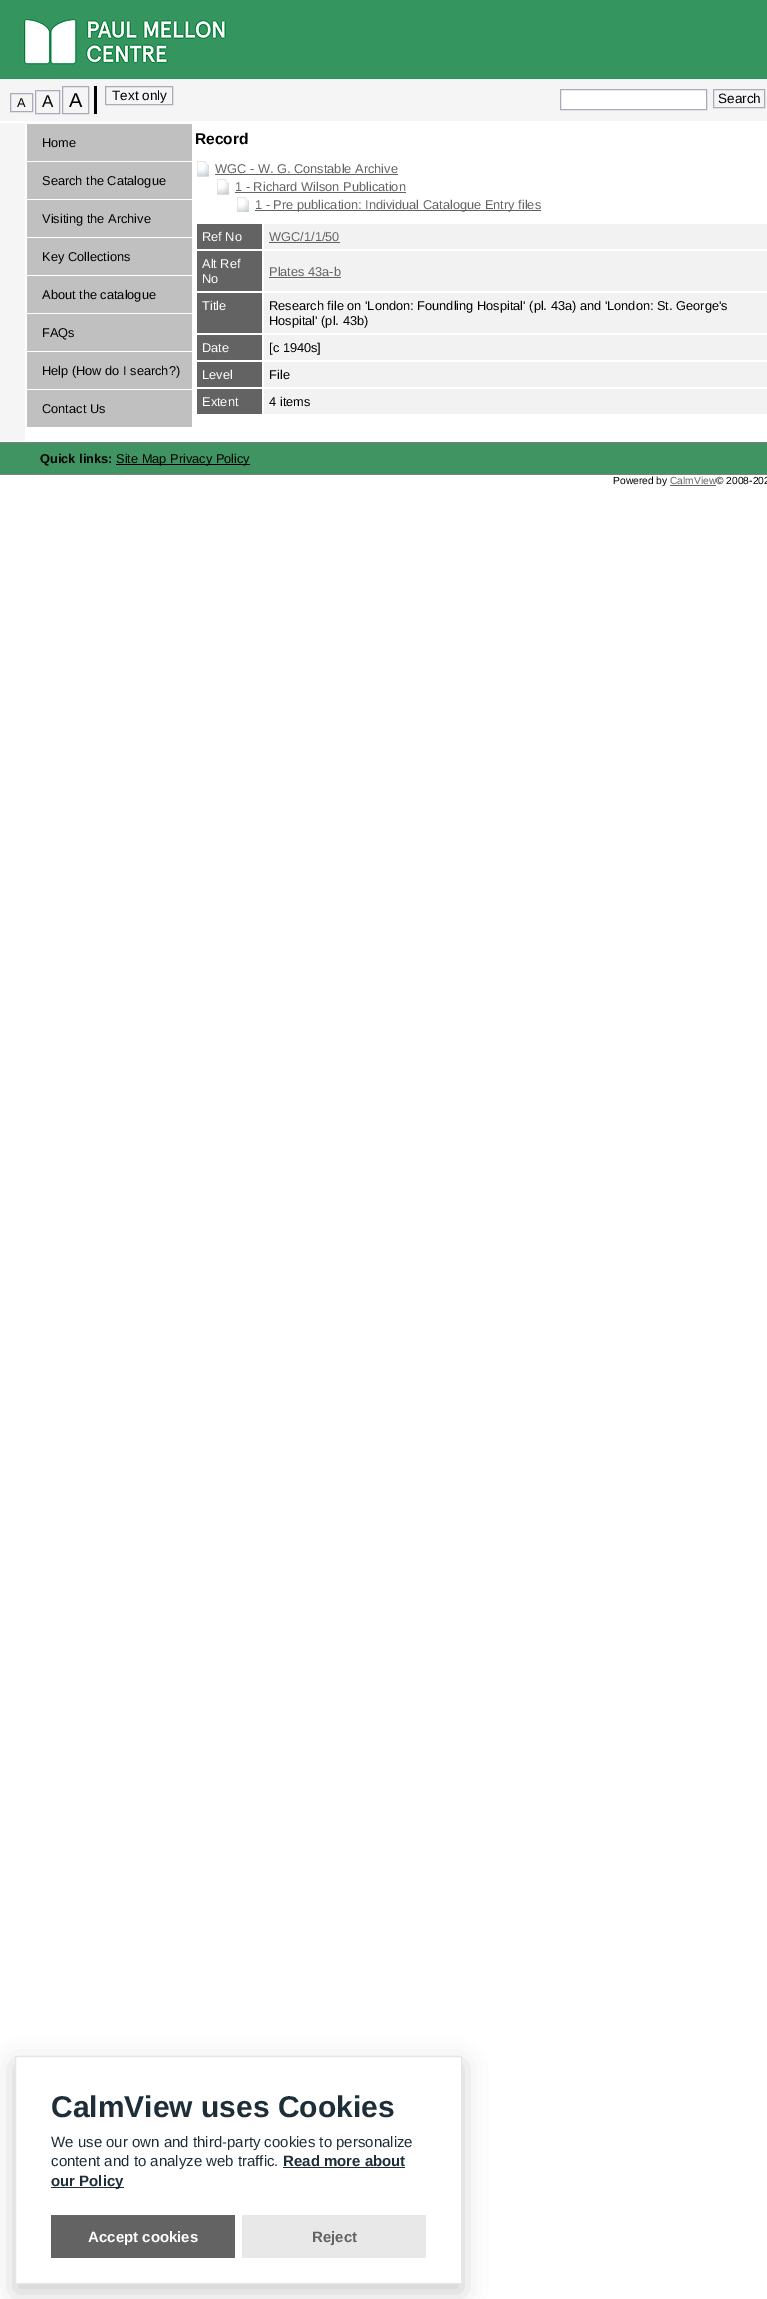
%!PS
<< /PageSize [767 2299] /PageUsesTransparency true >> setpagedevice
/rgb { 3 { 255 div 3 1 roll } repeat setrgbcolor } def
/font { [ exch dup neg 0 0 3 -1 roll 0 0 ] selectfont } def
/alpha { dup .setfillconstantalpha .setstrokeconstantalpha } def
/roundrect { 5 dict begin { /r /h /w /y /x } { exch def } forall
  x r add y moveto x w add y 2 copy h add r arct x w add y h add x 1 index r arct
  x y h add x y r arct x y 2 copy exch w add exch r arct closepath end } def
/shadow { 12 dict begin { /a /b /q /h /w /y /x } { exch def } forall gsave /was 0 def
  9 -2 -9 { dup b mul 4 div /e exch def 1 sub .425 mul 2.718 exch exp 1 add a .99 .min exch div /now exch def
    1 1 now sub 1 was sub div sub alpha /was now def
    w h .min e 2 mul add 0 gt { x e sub y e sub w e 2 mul add h e 2 mul add
      q e add b .6 mul add w h .min 2 div e add .min 0 .max roundrect fill } if } for grestore end } def
/picture { 5 dict begin { /h /w /y /x /name } { exch def } forall
  gsave x y translate w h scale
  w h 8 [w 0 0 h 0 0] name (r) file false 3 colorimage grestore end } def
0 .pushpdf14devicefilter
0 2299 translate 1 -1 scale
4 setmiterlimit
255 255 255 rgb
0 0 767 2299 rectfill
(img/1.rgb) 0 0 767 79 picture
245 245 245 rgb
0 79 767 42 rectfill
0 0 0 rgb
94 86 3 28 rectfill
170 171 184 rgb
10.5 93.5 22 18 rectstroke
35.5 90.5 24 23 rectstroke
62.5 86.5 26 27 rectstroke
105.5 86.5 67 18 rectstroke
255 255 255 rgb
560.5 89.5 moveto 706.5 89.5 lineto 706.5 109.5 lineto 560.5 109.5 lineto closepath gsave fill grestore
170 171 184 rgb
stroke
713.5 89.5 51 18 rectstroke
[
  [0 123 25 318 245 245 245]
  [27 124 165 37 192 192 192]
  [27 162 165 37 192 192 192]
  [27 200 165 37 192 192 192]
  [27 238 165 37 192 192 192]
  [27 276 165 37 192 192 192]
  [27 314 165 37 192 192 192]
  [27 352 165 37 192 192 192]
  [27 390 165 37 192 192 192]
] { aload pop rgb rectfill } forall
(img/2.rgb) 197 161 12 16 picture
99 99 100 rgb
215 174 183 1 rectfill
(img/2.rgb) 217 179 12 16 picture
235 192 171 1 rectfill
(img/3.rgb) 237 197 12 15 picture
[
  [255 210 286 1 99 99 100]
  [197 224 65 25 99 99 100]
  [264 224 503 25 242 242 242]
  [269 242 71 1 99 99 100]
  [197 251 65 40 99 99 100]
  [264 251 503 40 242 242 242]
  [269 277 72 1 99 99 100]
  [197 293 65 40 99 99 100]
  [264 293 503 40 242 242 242]
  [197 335 65 25 99 99 100]
  [264 335 503 25 242 242 242]
  [197 362 65 25 99 99 100]
  [264 362 503 25 242 242 242]
  [197 389 65 25 99 99 100]
  [264 389 503 25 242 242 242]
  [0 443 767 31 63 148 97]
  [0 442 767 1 128 128 128]
  [0 474 767 1 128 128 128]
  [116 464 134 1 0 0 0]
  [670 485 46 1 99 99 100]
] { aload pop rgb rectfill } forall
gsave
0 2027 moveto 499 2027 lineto 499 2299 lineto 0 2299 lineto closepath 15 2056 moveto 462 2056 lineto 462 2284 lineto 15 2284 lineto closepath eoclip newpath
2 2 3 rgb
15 2064 447 228 0 12 0.2 shadow
grestore
230 230 230 rgb
15.5 2056.5 446 227 rectstroke
[
  [283 2167 122 1 29 46 56]
  [51 2187 73 1 29 46 56]
  [51 2215 184 43 99 99 100]
  [242 2215 184 43 232 232 232]
] { aload pop rgb rectfill } forall
/LiberationSans-Regular 12.8 font
0 0 0 rgb
17 107 moveto (A) show
/LiberationSans-Regular 17 font
42 107 moveto (A) show
/LiberationSans-Regular 20 font
69 107 moveto (A) show
/LiberationSans-Regular 13.5 font
112 100 moveto (Text only) show
718 103 moveto (Search) show
/LiberationSans-Regular 12.8 font
[
  [(Home) 42 147]
  [(Search the Catalogue) 42 185]
  [(Visiting the Archive) 42 223]
  [(Key Collections) 42 261]
  [(About the catalogue) 42 299]
  [(FAQs) 42 337]
  [(Help \(How do I search?\)) 42 375]
  [(Contact Us) 42 413]
] { aload pop moveto show } forall
/LiberationSans-Bold 15.5 font
195 144 moveto (Record) show
/LiberationSans-Regular 12.8 font
99 99 100 rgb
[
  [(WGC - W. G. Constable Archive) 215 173]
  [(1 - Richard Wilson Publication) 235 191]
  [(1 - Pre publication: Individual Catalogue Entry files) 255 209]
] { aload pop moveto show } forall
255 255 255 rgb
202 241 moveto (Ref No) show
99 99 100 rgb
269 241 moveto (WGC/1/1/50) show
255 255 255 rgb
202 268 moveto (Alt Ref) show
202 283 moveto (No) show
99 99 100 rgb
269 276 moveto (Plates 43a-b) show
255 255 255 rgb
202 310 moveto (Title) show
0 0 0 rgb
269 310 moveto (Research file on 'London: Foundling Hospital' \(pl. 43a\) and 'London: St. George's) show
269 325 moveto (Hospital' \(pl. 43b\)) show
255 255 255 rgb
202 352 moveto (Date) show
0 0 0 rgb
269 352 moveto ([c 1940s]) show
255 255 255 rgb
202 379 moveto (Level) show
0 0 0 rgb
269 379 moveto (File) show
255 255 255 rgb
202 406 moveto (Extent) show
0 0 0 rgb
269 406 moveto (4 items) show
/LiberationSans-Bold 12.8 font
40 463 moveto (Quick links:) show
/LiberationSans-Regular 12.8 font
116 463 moveto (Site Map Privacy Policy) show
/LiberationSans-Regular 10.25 font
613 484 moveto (Powered by) show
99 99 100 rgb
670 484 moveto (CalmView) show
0 0 0 rgb
716 484 moveto (© 2008-202) show
/LiberationSans-Bold 30 font
29 46 56 rgb
51 2117 moveto (CalmView uses Cookies) show
/LiberationSans-Regular 15 font
51 2147 moveto (We use our own and third-party cookies to personalize) show
51 2166 moveto (content and to analyze web traffic.) show
/LiberationSans-Bold 15 font
283 2166 moveto (Read more about) show
51 2186 moveto (our Policy) show
255 255 255 rgb
88 2242 moveto (Accept cookies) show
99 99 100 rgb
312 2242 moveto (Reject) show
.poppdf14devicefilter showpage
